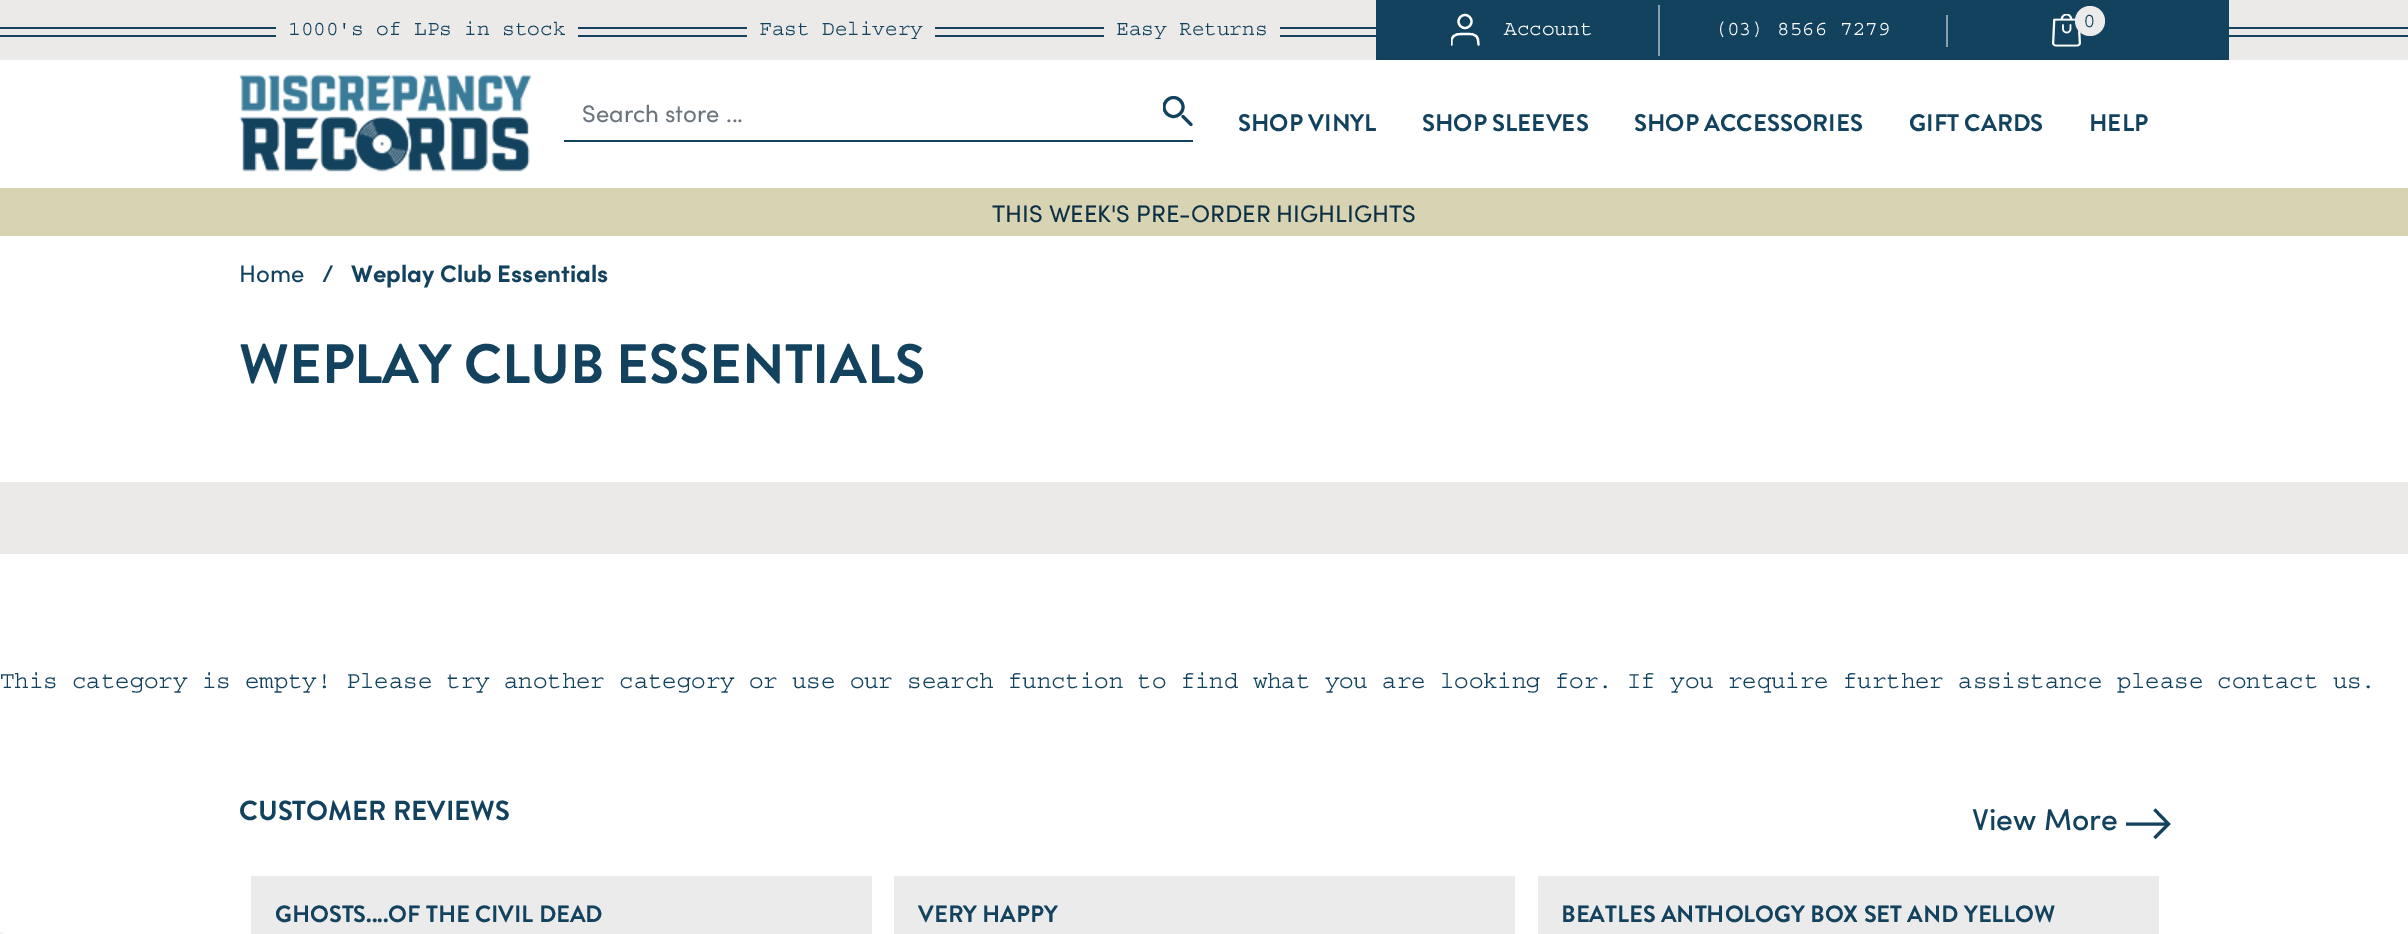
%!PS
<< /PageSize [2408 934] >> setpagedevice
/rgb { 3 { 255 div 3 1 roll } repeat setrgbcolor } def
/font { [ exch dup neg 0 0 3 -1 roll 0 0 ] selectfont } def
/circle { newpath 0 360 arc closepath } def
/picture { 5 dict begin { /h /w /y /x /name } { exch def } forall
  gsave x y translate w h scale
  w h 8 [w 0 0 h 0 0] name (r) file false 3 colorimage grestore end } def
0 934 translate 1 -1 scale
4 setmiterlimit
255 255 255 rgb
0 0 2408 934 rectfill
[
  [0 0 2408 60 235 234 233]
  [0 27 2408 2 19 66 94]
  [0 35 2408 2 19 66 94]
  [276 27 302 10 235 234 233]
  [747 27 188 10 235 234 233]
  [1104 27 176 10 235 234 233]
  [1376 0 853 60 19 66 94]
  [1658 5 2 51 137 161 175]
] { aload pop rgb rectfill } forall
255 255 255 rgb
2.2 setlinewidth
1465 21.5 6.5 circle stroke
gsave
1451 14 30 33 rectclip
1 setlinecap
1 setlinejoin
1478.5 44.5 moveto 1478 40 lineto 1477 33 1470 34 1465 34 curveto 1460 34 1453 33 1451.5 40 curveto 1451.5 44.5 lineto stroke
grestore
137 161 175 rgb
1946 15 2 32 rectfill
(img/1.rgb) 2052 14 29 33 picture
235 235 235 rgb
2090 21 15 circle fill
(img/2.rgb) 239 74 292 98 picture
19 66 94 rgb
564 140 629 2 rectfill
gsave
1163 96 30 32 rectclip
3 setlinewidth
1173.5 107 9.5 circle stroke
grestore
3 setlinewidth
1 setlinecap
1 setlinejoin
1191 124.5 moveto 1183 116.5 lineto stroke
216 211 178 rgb
0 188 2408 48 rectfill
235 234 233 rgb
0 482 2408 72 rectfill
gsave
2126 809 45 30 rectclip
19 66 94 rgb
0 setlinecap
0 setlinejoin
2167.5 824 moveto 2125.5 824 lineto stroke
grestore
19 66 94 rgb
0 setlinecap
0 setlinejoin
2154.5 809.5 moveto 2168.5 824 lineto 2154.5 838 lineto stroke
[
  [251 876 621 58 235 235 235]
  [894 876 621 58 235 235 235]
  [1538 876 621 58 235 235 235]
  [0 932 3 2 245 245 245]
] { aload pop rgb rectfill } forall
/Courier-Medium 21 font
19 66 94 rgb
[
  [(1000's of LPs in stock) 288 35]
  [(Fast Delivery) 759 35]
  [(Easy Returns) 1116 35]
] { aload pop moveto show } forall
255 255 255 rgb
1504 35 moveto (Account) show
1714 35 moveto (\(03\) 8566 7279) show
19 66 94 rgb
2083 27 moveto (0) show
/Sofia-Regular 24 font
108 117 125 rgb
582 122 moveto (Search store ...) show
/BrandonGrotesque-Bold 24 font
19 66 94 rgb
[
  [(SHOP VINYL) 1238 131]
  [(SHOP SLEEVES) 1422 131]
  [(SHOP ACCESSORIES) 1634 131]
  [(GIFT CARDS) 1909 131]
  [(HELP) 2089 131]
] { aload pop moveto show } forall
/Sofia-Regular 24 font
11 48 67 rgb
992 222 moveto (THIS WEEK'S PRE-ORDER HIGHLIGHTS) show
19 66 94 rgb
239 282 moveto (Home) show
/Sofia-Bold 24 font
322 282 moveto (/) show
351 282 moveto (Weplay Club Essentials) show
/BrandonGrotesque-Bold 55.5 font
239 383 moveto (WEPLAY CLUB ESSENTIALS) show
/Courier-Medium 24 font
0 688 moveto (This category is empty! Please try another category or use our search function to find what you are looking for. If you require further assistance please contact us.) show
/BrandonGrotesque-Bold 27.5 font
239 820 moveto (CUSTOMER REVIEWS) show
/Sofia-Medium 30 font
1972 830 moveto (View More) show
/BrandonGrotesque-Bold 23.6 font
[
  [(GHOSTS....OF THE CIVIL DEAD) 275 922]
  [(VERY HAPPY) 918 922]
  [(BEATLES ANTHOLOGY BOX SET AND YELLOW) 1561 922]
] { aload pop moveto show } forall
showpage
